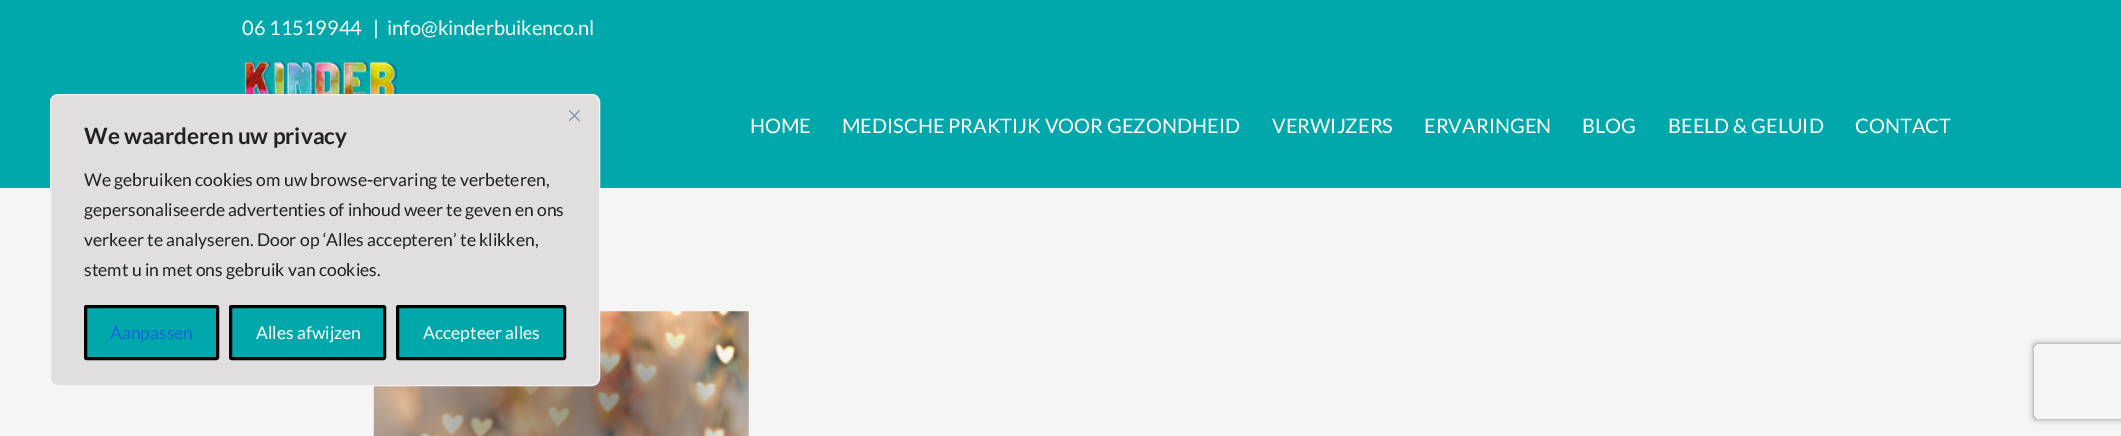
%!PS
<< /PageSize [2121 436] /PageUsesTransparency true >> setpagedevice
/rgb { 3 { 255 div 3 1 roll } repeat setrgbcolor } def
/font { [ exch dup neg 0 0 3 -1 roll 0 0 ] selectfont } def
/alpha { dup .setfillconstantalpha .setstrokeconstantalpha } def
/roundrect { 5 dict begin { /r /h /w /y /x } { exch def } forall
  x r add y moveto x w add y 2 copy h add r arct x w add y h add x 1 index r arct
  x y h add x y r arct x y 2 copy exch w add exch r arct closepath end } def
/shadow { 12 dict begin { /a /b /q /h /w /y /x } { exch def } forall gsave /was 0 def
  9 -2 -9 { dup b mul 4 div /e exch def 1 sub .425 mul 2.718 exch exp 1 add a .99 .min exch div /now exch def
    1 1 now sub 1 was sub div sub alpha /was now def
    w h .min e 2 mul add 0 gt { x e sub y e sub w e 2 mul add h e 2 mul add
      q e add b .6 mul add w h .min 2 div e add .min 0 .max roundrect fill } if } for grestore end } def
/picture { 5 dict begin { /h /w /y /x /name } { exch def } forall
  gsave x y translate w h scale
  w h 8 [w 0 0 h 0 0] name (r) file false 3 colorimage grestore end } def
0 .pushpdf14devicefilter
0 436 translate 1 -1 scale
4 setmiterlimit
245 245 245 rgb
0 0 2121 436 rectfill
0 168 172 rgb
0 0 2121 188 rectfill
(img/1.rgb) 244 60 154 34 picture
(img/2.rgb) 373 311 376 125 picture
224 222 222 rgb
50.5 94.5 549 291 7.5 roundrect gsave fill grestore
244 244 244 rgb
stroke
(img/3.rgb) 569 110 11 11 picture
0 168 172 rgb
85.5 306.5 132 52 1 roundrect gsave fill grestore
0 0 0 rgb
3 setlinewidth
stroke
0 168 172 rgb
230.5 306.5 154 52 1 roundrect gsave fill grestore
0 0 0 rgb
stroke
0 168 172 rgb
397.5 306.5 167 52 1 roundrect gsave fill grestore
0 0 0 rgb
stroke
gsave
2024 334 moveto 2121 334 lineto 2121 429 lineto 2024 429 lineto closepath 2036.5 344 moveto 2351.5 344 lineto 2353 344 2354 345 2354 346.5 curveto 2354 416.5 lineto 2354 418 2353 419 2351.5 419 curveto 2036.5 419 lineto 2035 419 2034 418 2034 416.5 curveto 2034 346.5 lineto 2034 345 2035 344 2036.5 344 curveto closepath eoclip newpath
128 128 128 rgb
2034 344 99 75 2.5 3 1 shadow
grestore
/Lato-Regular 20 font
255 255 255 rgb
[
  [(06 11519944) 242 35]
  [(|) 373 35]
  [(info@kinderbuikenco.nl) 387 35]
  [(HOME) 750 133]
  [(MEDISCHE PRAKTIJK VOOR GEZONDHEID) 842 133]
  [(VERWIJZERS) 1272 133]
  [(ERVARINGEN) 1424 133]
  [(BLOG) 1582 133]
  [(BEELD & GELUID) 1668 133]
  [(CONTACT) 1855 133]
] { aload pop moveto show } forall
/Lato-Bold 22.5 font
33 33 33 rgb
84 144 moveto (We waarderen uw privacy) show
/Lato-Regular 17.5 font
[
  [(We gebruiken cookies om uw browse-ervaring te verbeteren,) 84 186]
  [(gepersonaliseerde advertenties of inhoud weer te geven en ons) 84 216]
  [(verkeer te analyseren. Door op ‘Alles accepteren’ te klikken,) 84 246]
  [(stemt u in met ons gebruik van cookies.) 84 276]
] { aload pop moveto show } forall
24 99 220 rgb
110 339 moveto (Aanpassen) show
255 255 255 rgb
256 339 moveto (Alles afwijzen) show
423 339 moveto (Accepteer alles) show
.poppdf14devicefilter showpage
